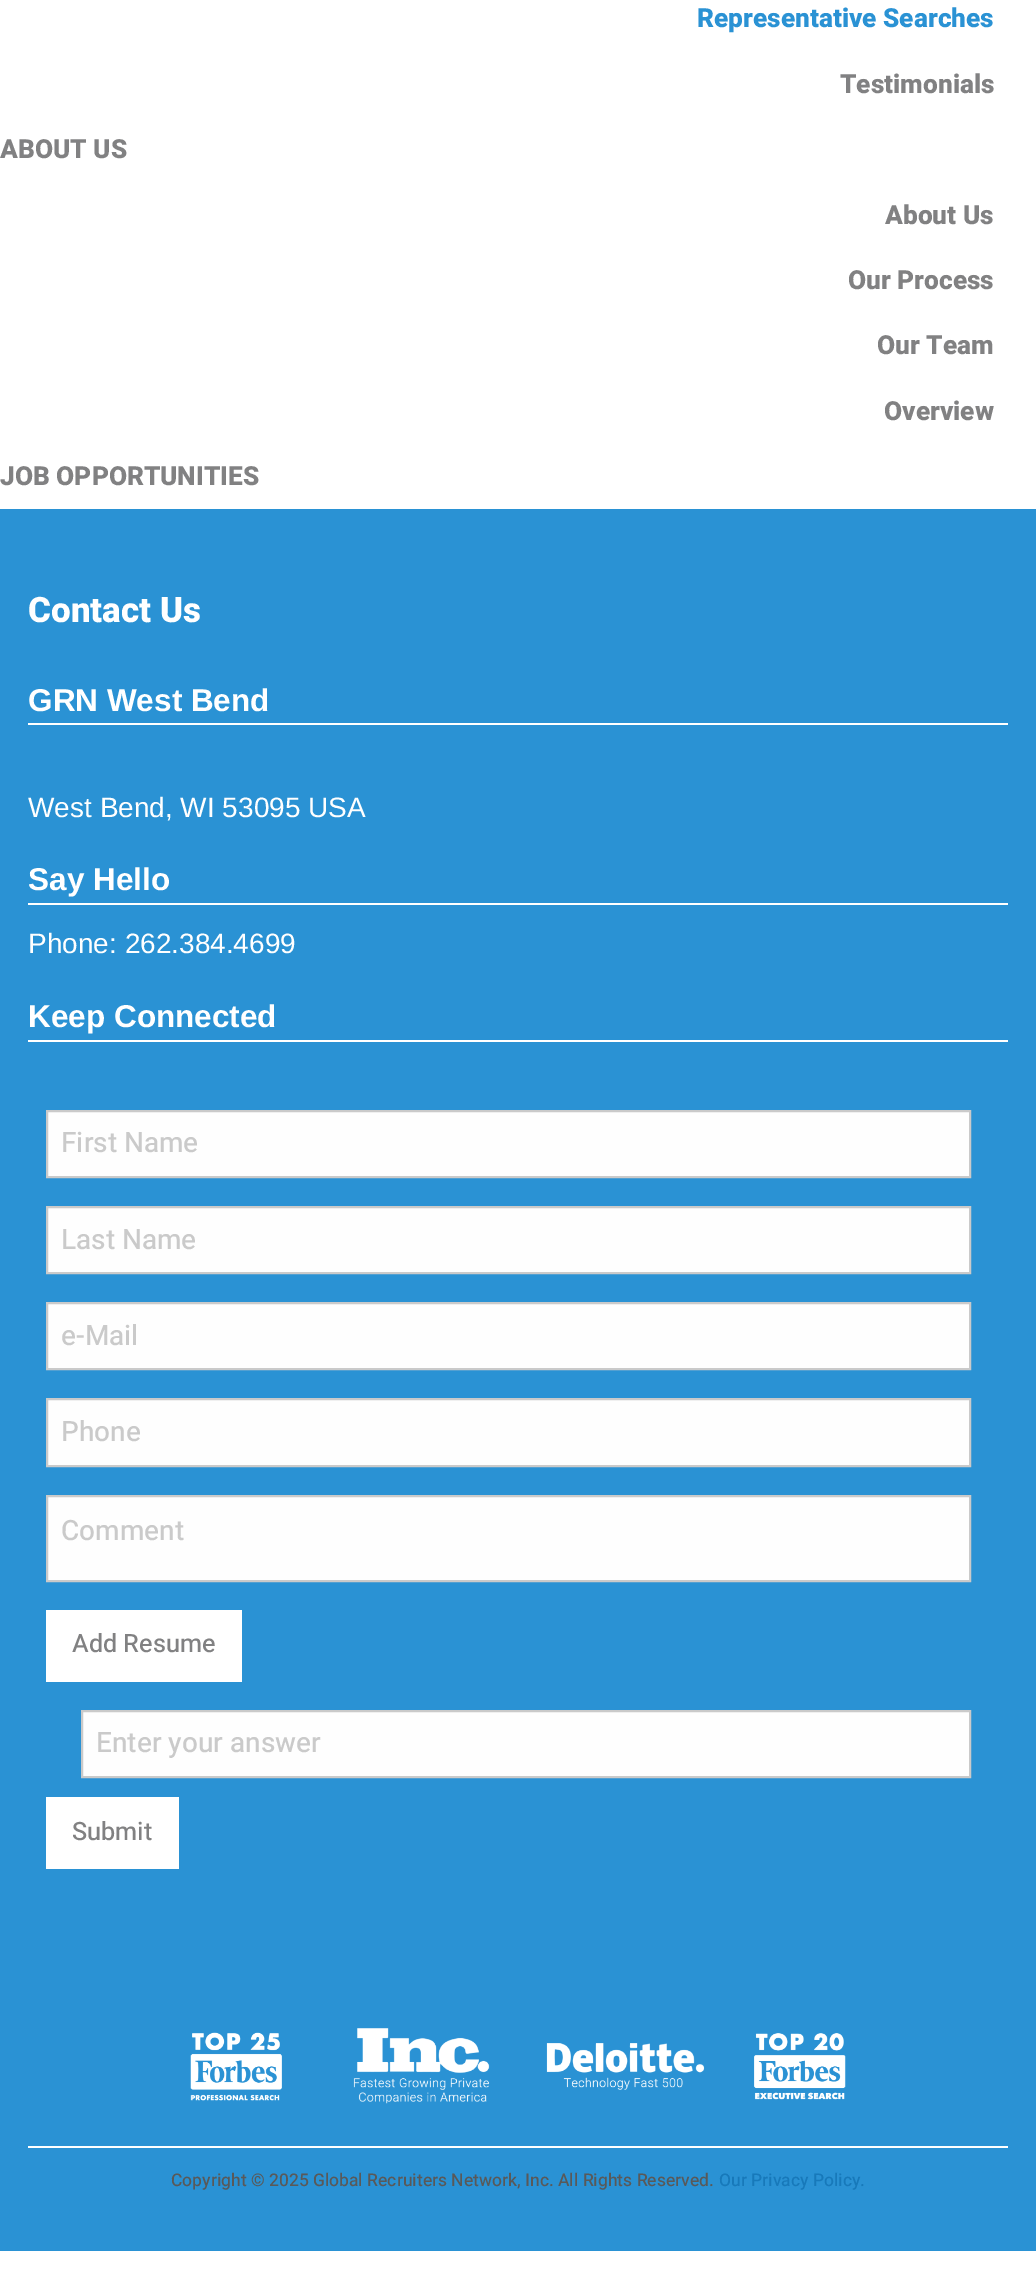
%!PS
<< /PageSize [1036 2278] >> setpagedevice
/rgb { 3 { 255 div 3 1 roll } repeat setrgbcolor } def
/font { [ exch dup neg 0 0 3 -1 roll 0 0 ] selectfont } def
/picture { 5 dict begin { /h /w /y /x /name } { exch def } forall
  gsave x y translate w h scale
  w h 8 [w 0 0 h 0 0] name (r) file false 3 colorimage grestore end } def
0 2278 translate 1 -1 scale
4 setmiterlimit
255 255 255 rgb
0 0 1036 2278 rectfill
[
  [0 509 1036 1742 42 146 212]
  [28 723 980 2 255 255 255]
  [28 903 980 2 255 255 255]
  [28 1040 980 2 255 255 255]
] { aload pop rgb rectfill } forall
254 254 254 rgb
47 1111 moveto 970 1111 lineto 970 1177 lineto 47 1177 lineto closepath gsave fill grestore
202 202 202 rgb
2 setlinewidth
stroke
254 254 254 rgb
47 1207 moveto 970 1207 lineto 970 1273 lineto 47 1273 lineto closepath gsave fill grestore
202 202 202 rgb
stroke
254 254 254 rgb
47 1303 moveto 970 1303 lineto 970 1369 lineto 47 1369 lineto closepath gsave fill grestore
202 202 202 rgb
stroke
254 254 254 rgb
47 1399 moveto 970 1399 lineto 970 1466 lineto 47 1466 lineto closepath gsave fill grestore
202 202 202 rgb
stroke
254 254 254 rgb
47 1496 moveto 970 1496 lineto 970 1581 lineto 47 1581 lineto closepath gsave fill grestore
202 202 202 rgb
stroke
255 255 255 rgb
46 1610 196 72 rectfill
254 254 254 rgb
82 1711 moveto 970 1711 lineto 970 1777 lineto 82 1777 lineto closepath gsave fill grestore
202 202 202 rgb
stroke
255 255 255 rgb
46 1797 133 72 rectfill
(img/1.rgb) 190 2028 656 76 picture
28 2146 980 2 rectfill
/Heebo-ExtraBold 26.25 font
42 146 212 rgb
697 27 moveto (Representative Searches) show
129 129 130 rgb
[
  [(Testimonials) 840 93]
  [(ABOUT US) 0 158]
  [(About Us) 885 224]
  [(Our Process) 848 289]
  [(Our Team) 877 354]
  [(Overview) 884 420]
  [(JOB OPPORTUNITIES) 0 485]
] { aload pop moveto show } forall
/Heebo-ExtraBold 35 font
255 255 255 rgb
28 622 moveto (Contact Us) show
/LiberationSans-Bold 31.5 font
28 711 moveto (GRN West Bend) show
/LiberationSans-Regular 28 font
28 817 moveto (West Bend, WI 53095 USA) show
/LiberationSans-Bold 31.5 font
28 890 moveto (Say Hello) show
/LiberationSans-Regular 28 font
28 953 moveto (Phone: 262.384.4699) show
/LiberationSans-Bold 31.5 font
28 1027 moveto (Keep Connected) show
/Heebo-Medium 28 font
202 202 202 rgb
[
  [(First Name) 61 1152]
  [(Last Name) 61 1249]
  [(e-Mail) 61 1345]
  [(Phone) 61 1441]
  [(Comment) 61 1540]
] { aload pop moveto show } forall
/Heebo-Medium 25.25 font
129 129 130 rgb
72 1652 moveto (Add Resume) show
/Heebo-Medium 28 font
202 202 202 rgb
96 1752 moveto (Enter your answer) show
/Heebo-Medium 25.25 font
129 129 130 rgb
72 1840 moveto (Submit) show
/Heebo-Medium 17.5 font
89 89 89 rgb
171 2186 moveto (Copyright © 2025 Global Recruiters Network, Inc. All Rights Reserved.) show
23 121 186 rgb
719 2186 moveto (Our Privacy Policy.) show
showpage
